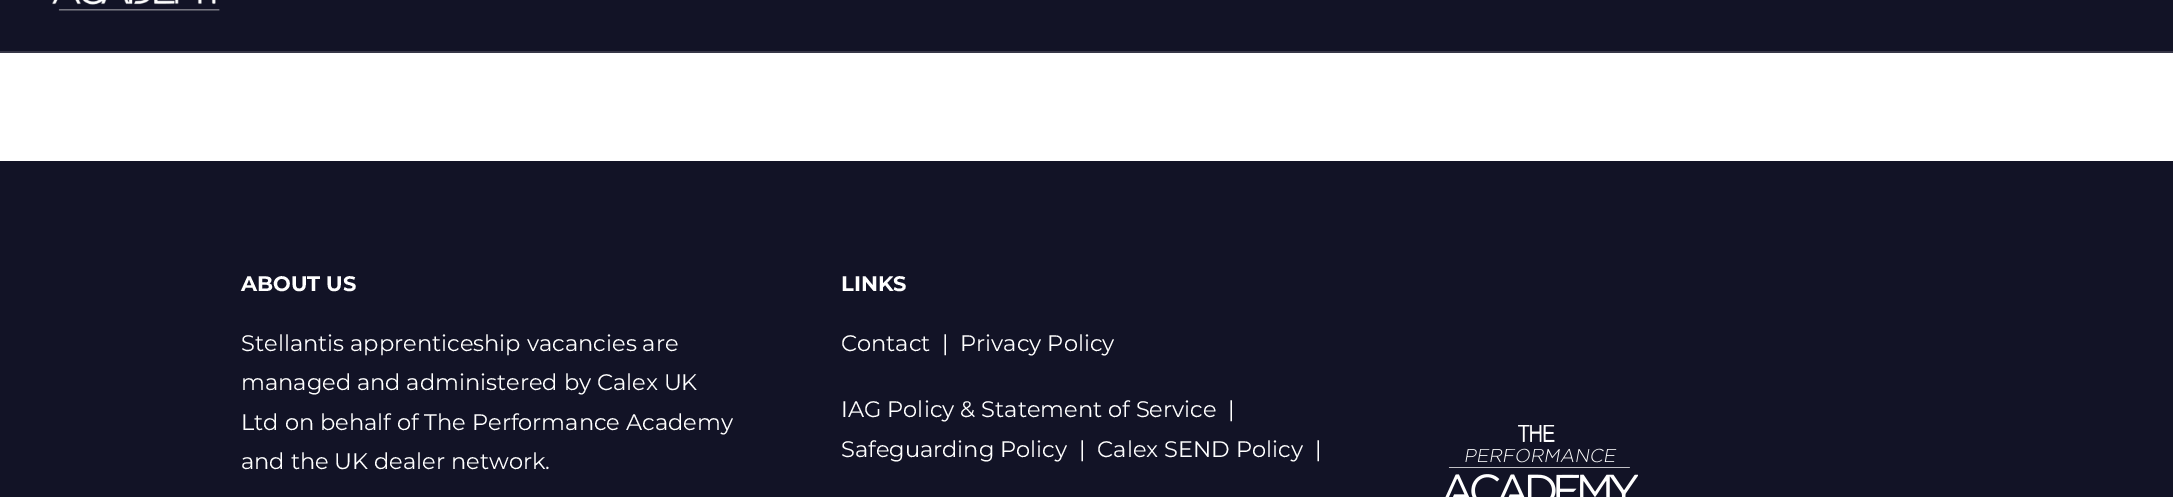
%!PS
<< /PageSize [2173 497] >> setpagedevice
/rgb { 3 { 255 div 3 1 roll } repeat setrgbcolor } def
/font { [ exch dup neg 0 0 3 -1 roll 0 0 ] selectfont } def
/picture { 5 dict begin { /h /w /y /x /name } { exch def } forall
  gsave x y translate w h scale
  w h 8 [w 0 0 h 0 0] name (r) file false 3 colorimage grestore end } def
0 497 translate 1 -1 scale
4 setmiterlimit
255 255 255 rgb
0 0 2173 497 rectfill
18 19 38 rgb
0 0 2173 51 rectfill
54 54 71 rgb
0 51 2173 2 rectfill
(img/1.rgb) 52 0 168 11 picture
18 19 38 rgb
0 161 2173 336 rectfill
(img/2.rgb) 1445 425 193 72 picture
/Montserrat-Bold 21 font
255 255 255 rgb
241 291 moveto (ABOUT US) show
/Montserrat-Regular 22.5 font
[
  [(Stellantis apprenticeship vacancies are) 241 351]
  [(managed and administered by Calex UK) 241 390]
  [(Ltd on behalf of The Performance Academy) 241 430]
  [(and the UK dealer network.) 241 469]
] { aload pop moveto show } forall
/Montserrat-Bold 21 font
841 291 moveto (LINKS) show
/Montserrat-Regular 22.5 font
[
  [(Contact) 841 351]
  [(|) 942 351]
  [(Privacy Policy) 960 351]
  [(IAG Policy & Statement of Service) 841 417]
  [(|) 1228 417]
  [(Safeguarding Policy) 841 457]
  [(|  Calex SEND Policy) 1079 457]
  [(|) 1315 457]
] { aload pop moveto show } forall
showpage
